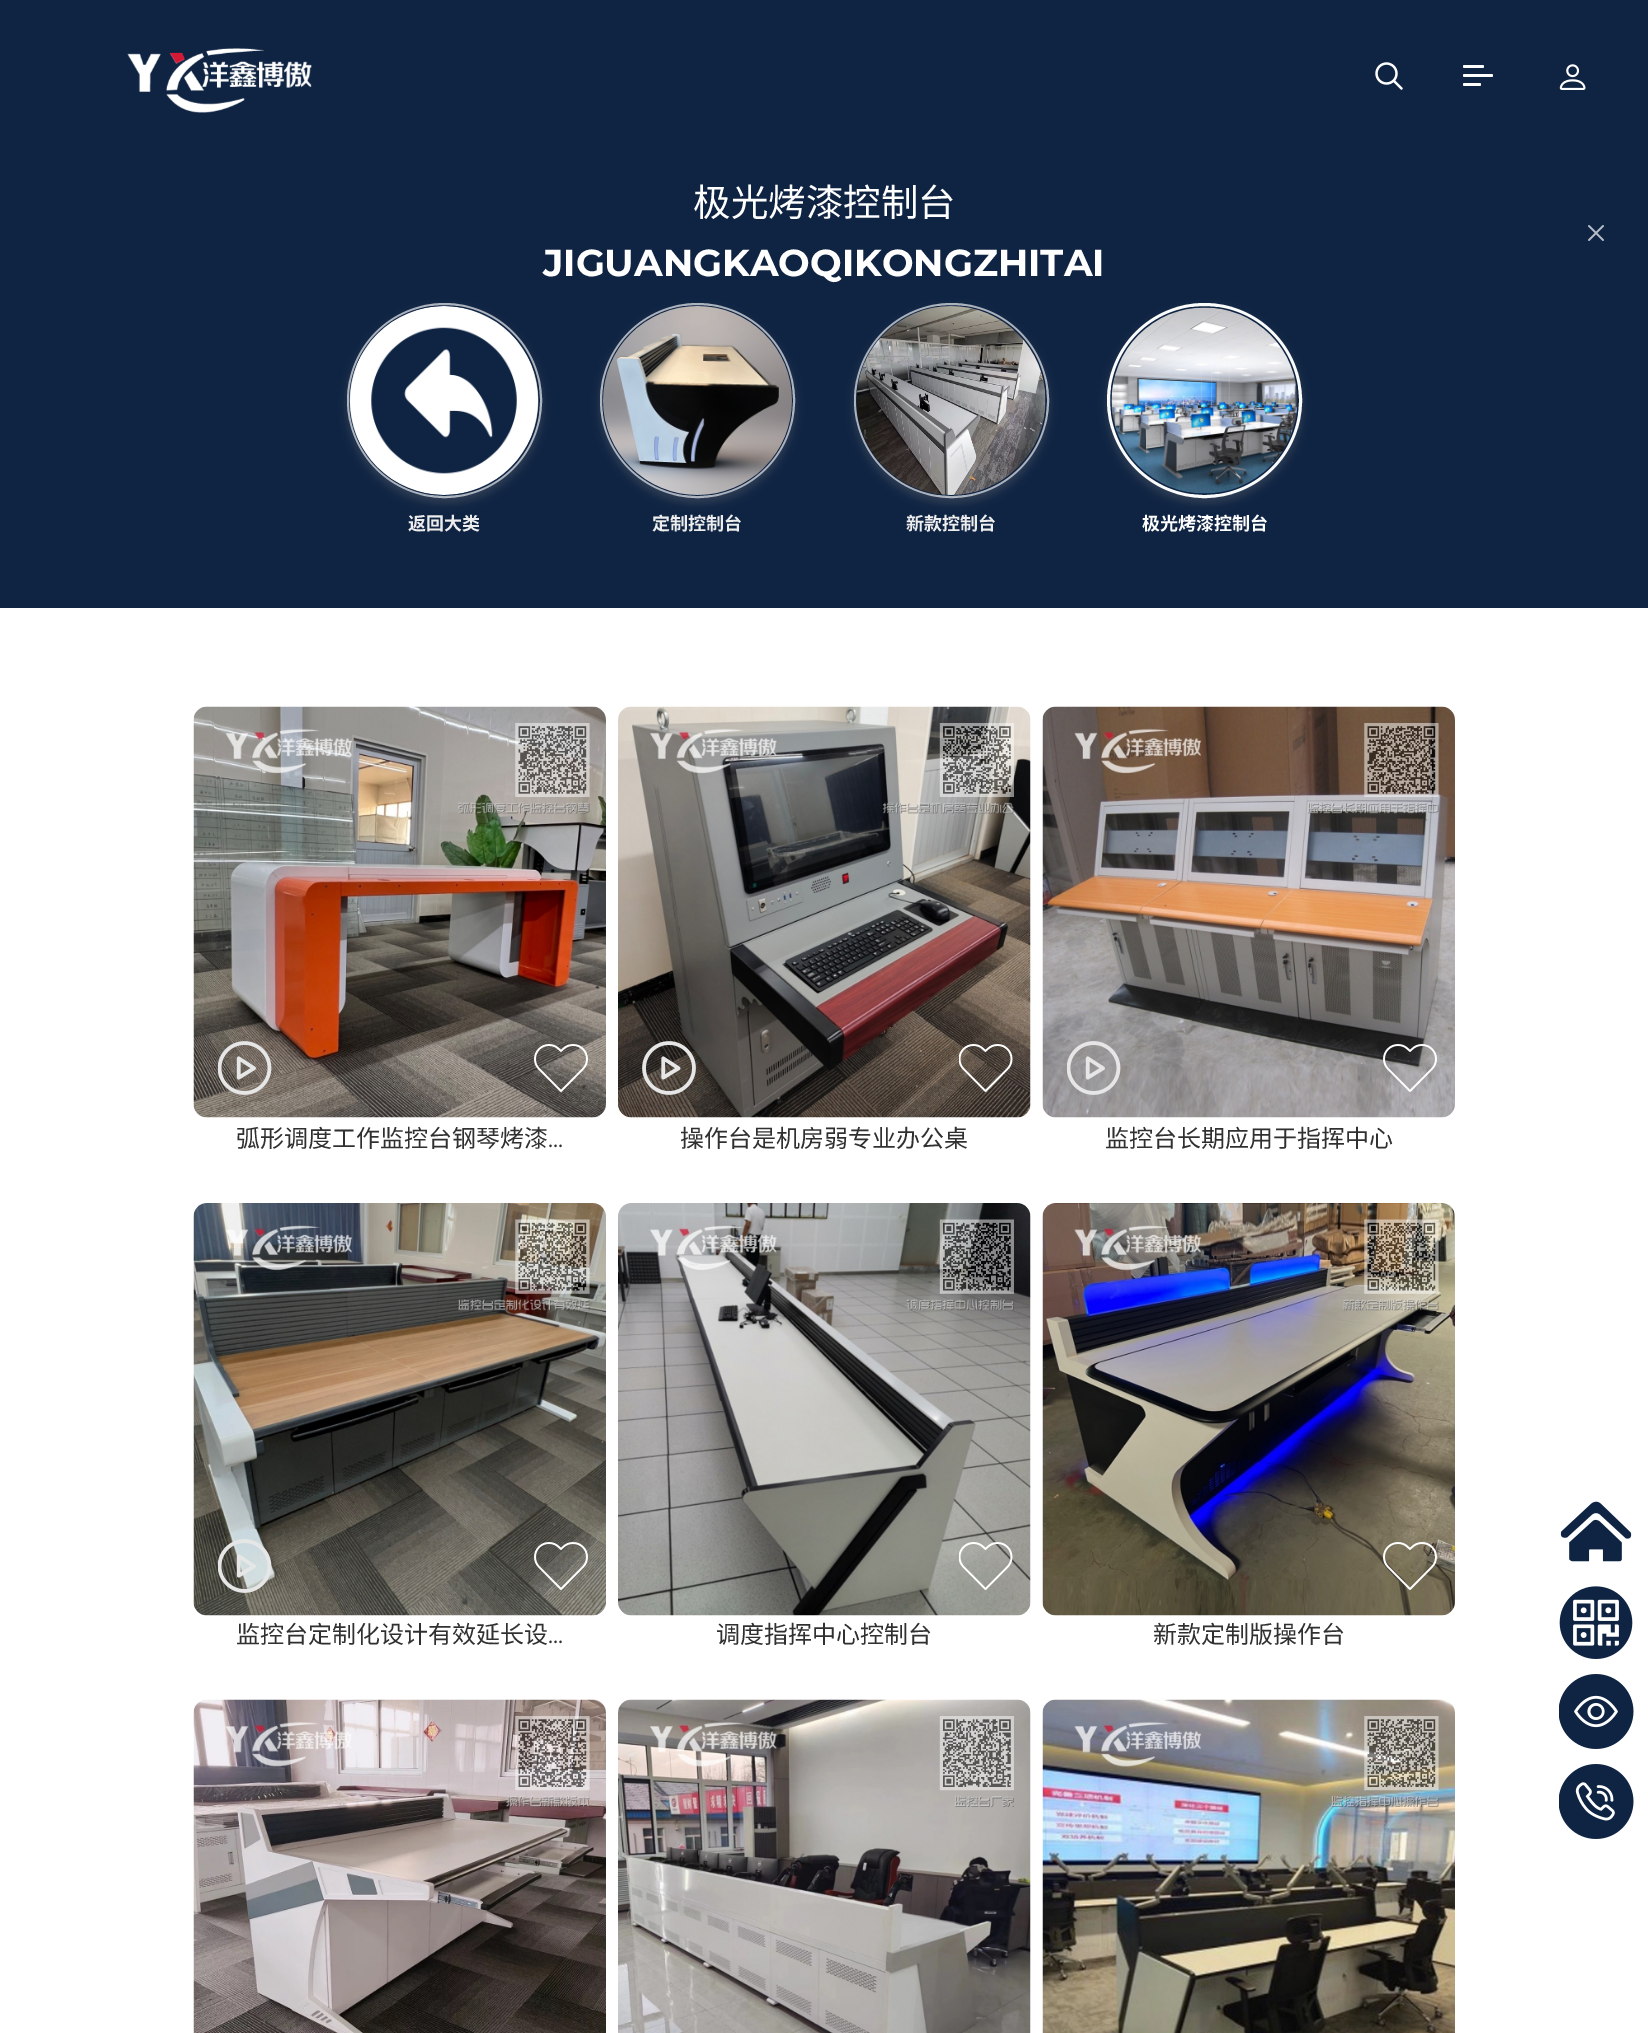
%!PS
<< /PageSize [1648 2033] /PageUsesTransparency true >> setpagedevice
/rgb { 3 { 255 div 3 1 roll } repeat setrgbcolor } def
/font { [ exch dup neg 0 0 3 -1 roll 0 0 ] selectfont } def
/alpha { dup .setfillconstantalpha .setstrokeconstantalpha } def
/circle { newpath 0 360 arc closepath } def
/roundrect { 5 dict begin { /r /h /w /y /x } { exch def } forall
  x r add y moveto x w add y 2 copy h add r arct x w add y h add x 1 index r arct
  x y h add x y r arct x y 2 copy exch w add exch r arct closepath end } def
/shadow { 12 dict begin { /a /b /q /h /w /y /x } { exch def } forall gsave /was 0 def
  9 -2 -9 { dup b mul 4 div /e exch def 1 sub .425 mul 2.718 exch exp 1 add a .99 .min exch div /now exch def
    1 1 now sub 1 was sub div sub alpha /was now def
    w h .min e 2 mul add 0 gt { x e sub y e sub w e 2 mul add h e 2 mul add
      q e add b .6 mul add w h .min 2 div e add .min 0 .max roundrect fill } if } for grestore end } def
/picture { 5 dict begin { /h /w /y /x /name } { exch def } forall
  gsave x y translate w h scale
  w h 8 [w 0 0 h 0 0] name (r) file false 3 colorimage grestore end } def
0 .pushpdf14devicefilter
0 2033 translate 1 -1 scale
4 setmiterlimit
255 255 255 rgb
0 0 1648 2033 rectfill
15 36 67 rgb
0 0 1648 608 rectfill
(img/1.rgb) 127 48 185 65 picture
(img/2.rgb) 1375 62 28 28 picture
255 255 255 rgb
1463 74 30 3 1.5 roundrect fill
1463 65 21 3 1.5 roundrect fill
1463 83 18 3 1.5 roundrect fill
(img/3.rgb) 1559 64 27 26 picture
gsave
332 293 moveto 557 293 lineto 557 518 lineto 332 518 lineto closepath 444.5 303 moveto 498.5 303 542 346.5 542 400.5 curveto 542 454.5 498.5 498 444.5 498 curveto 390.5 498 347 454.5 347 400.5 curveto 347 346.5 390.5 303 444.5 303 curveto closepath eoclip newpath
125 125 125 rgb
347 308 195 195 97.5 4.5 0.3 shadow
grestore
0.65 alpha
2 setlinewidth
444.5 400.5 96.5 circle stroke
1 alpha
(img/4.rgb) 349 306 190 189 picture
gsave
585 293 moveto 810 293 lineto 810 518 lineto 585 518 lineto closepath 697.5 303 moveto 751.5 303 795 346.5 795 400.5 curveto 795 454.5 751.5 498 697.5 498 curveto 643.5 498 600 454.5 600 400.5 curveto 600 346.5 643.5 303 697.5 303 curveto closepath eoclip newpath
125 125 125 rgb
600 308 195 195 97.5 4.5 0.3 shadow
grestore
0.65 alpha
697.5 400.5 96.5 circle stroke
1 alpha
(img/5.rgb) 603 306 189 189 picture
gsave
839 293 moveto 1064 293 lineto 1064 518 lineto 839 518 lineto closepath 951.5 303 moveto 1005.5 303 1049 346.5 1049 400.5 curveto 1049 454.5 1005.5 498 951.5 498 curveto 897.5 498 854 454.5 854 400.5 curveto 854 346.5 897.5 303 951.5 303 curveto closepath eoclip newpath
125 125 125 rgb
854 308 195 195 97.5 4.5 0.3 shadow
grestore
0.65 alpha
951.5 400.5 96.5 circle stroke
1 alpha
(img/6.rgb) 856 306 190 189 picture
gsave
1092 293 moveto 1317 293 lineto 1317 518 lineto 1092 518 lineto closepath 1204.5 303 moveto 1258.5 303 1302 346.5 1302 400.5 curveto 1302 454.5 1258.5 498 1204.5 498 curveto 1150.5 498 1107 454.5 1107 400.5 curveto 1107 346.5 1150.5 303 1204.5 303 curveto closepath eoclip newpath
125 125 125 rgb
1107 308 195 195 97.5 4.5 0.3 shadow
grestore
0.98 alpha
3 setlinewidth
1204.5 400.5 96 circle stroke
1 alpha
(img/7.rgb) 1111 307 187 187 picture
(img/8.rgb) 193 706 413 412 picture
(img/9.rgb) 218 1041 54 54 picture
(img/10.rgb) 534 1044 54 48 picture
(img/11.rgb) 618 706 413 412 picture
(img/12.rgb) 642 1041 54 54 picture
(img/13.rgb) 959 1044 54 48 picture
(img/14.rgb) 1042 706 413 412 picture
(img/15.rgb) 1067 1041 54 54 picture
(img/16.rgb) 1383 1044 54 48 picture
(img/17.rgb) 193 1203 413 413 picture
(img/18.rgb) 218 1539 54 54 picture
(img/19.rgb) 534 1542 54 48 picture
(img/20.rgb) 618 1203 413 413 picture
(img/21.rgb) 959 1542 54 48 picture
(img/22.rgb) 1042 1203 413 413 picture
(img/23.rgb) 1383 1542 54 48 picture
(img/24.rgb) 193 1699 413 334 picture
(img/25.rgb) 618 1699 413 334 picture
(img/26.rgb) 1042 1699 413 334 picture
(img/27.rgb) 1588 225 16 16 picture
(img/28.rgb) 1560 1501 72 61 picture
(img/29.rgb) 1559 1586 74 73 picture
(img/30.rgb) 1559 1674 75 75 picture
(img/31.rgb) 1559 1764 75 75 picture
/NotoSansCJKSC-Regular 37.5 font
693 216 moveto (极光烤漆控制台) show
/Montserrat-Bold 37.5 font
543 276 moveto (JIGUANGKAOQIKONGZHITAI) show
/NotoSansCJKSC-Bold 18 font
237 237 237 rgb
[
  [(返回大类) 408 530]
  [(定制控制台) 652 530]
  [(新款控制台) 906 530]
] { aload pop moveto show } forall
255 255 255 rgb
1142 530 moveto (极光烤漆控制台) show
/NotoSansCJKSC-Regular 24 font
48 48 48 rgb
236 1147 moveto (弧形调度工作监控台钢琴烤漆) show
/Montserrat-Regular 24 font
548 1147 moveto (...) show
/NotoSansCJKSC-Regular 24 font
[
  [(操作台是机房弱专业办公桌) 680 1147]
  [(监控台长期应用于指挥中心) 1105 1147]
  [(监控台定制化设计有效延长设) 236 1643]
] { aload pop moveto show } forall
/Montserrat-Regular 24 font
548 1643 moveto (...) show
/NotoSansCJKSC-Regular 24 font
716 1643 moveto (调度指挥中心控制台) show
1153 1643 moveto (新款定制版操作台) show
.poppdf14devicefilter showpage
